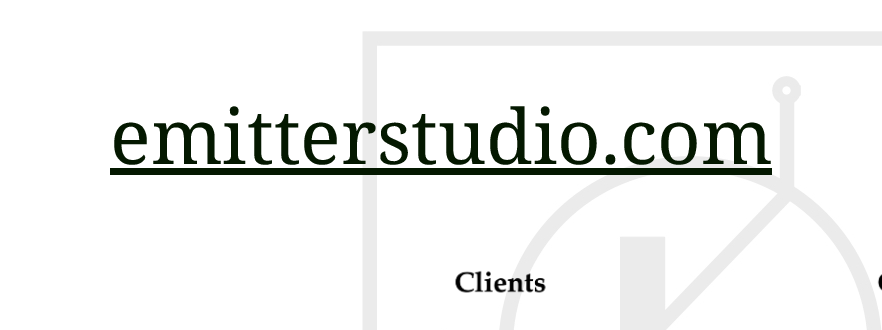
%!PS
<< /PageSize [882 330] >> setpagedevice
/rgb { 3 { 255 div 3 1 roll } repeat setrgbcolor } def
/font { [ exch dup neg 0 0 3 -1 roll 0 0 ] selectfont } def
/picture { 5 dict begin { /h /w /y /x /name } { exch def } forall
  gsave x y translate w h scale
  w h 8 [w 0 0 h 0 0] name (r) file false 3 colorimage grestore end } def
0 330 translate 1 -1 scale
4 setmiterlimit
255 255 255 rgb
0 0 882 330 rectfill
(img/1.rgb) 362 31 520 299 picture
4 24 0 rgb
110 168 662 7 rectfill
(img/2.rgb) 455 270 91 23 picture
(img/3.rgb) 877 274 5 17 picture
/NotoSerif-Regular 76 font
110 164 moveto (emitterstudio.com) show
showpage
